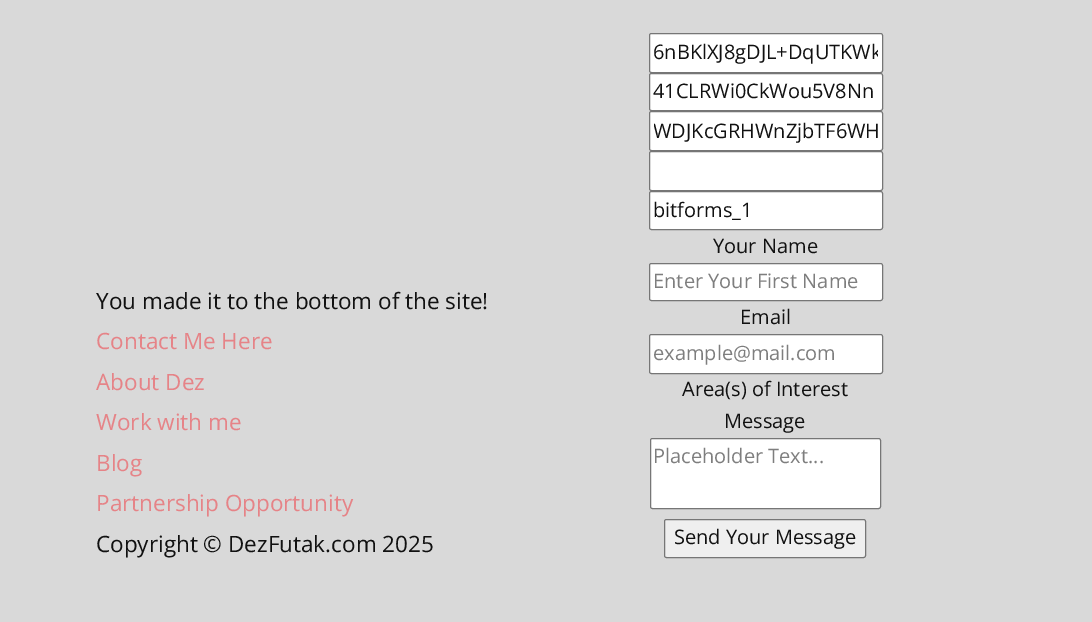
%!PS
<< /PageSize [1092 622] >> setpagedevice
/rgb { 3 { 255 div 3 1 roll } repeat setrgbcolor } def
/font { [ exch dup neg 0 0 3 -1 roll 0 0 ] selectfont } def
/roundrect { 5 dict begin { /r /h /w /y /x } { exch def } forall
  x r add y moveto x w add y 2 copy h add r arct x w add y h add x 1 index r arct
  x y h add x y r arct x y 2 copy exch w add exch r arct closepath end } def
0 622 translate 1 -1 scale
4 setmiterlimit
217 217 217 rgb
0 0 1092 622 rectfill
255 255 255 rgb
649.5 33.5 233 39 2 roundrect gsave fill grestore
118 118 118 rgb
stroke
255 255 255 rgb
649.5 73.5 233 37 2 roundrect gsave fill grestore
118 118 118 rgb
stroke
255 255 255 rgb
649.5 111.5 233 39 2 roundrect gsave fill grestore
118 118 118 rgb
stroke
255 255 255 rgb
649.5 151.5 233 39 2 roundrect gsave fill grestore
118 118 118 rgb
stroke
255 255 255 rgb
649.5 191.5 233 38 2 roundrect gsave fill grestore
118 118 118 rgb
stroke
255 255 255 rgb
649.5 263.5 233 37 2 roundrect gsave fill grestore
118 118 118 rgb
stroke
255 255 255 rgb
649.5 334.5 233 39 2 roundrect gsave fill grestore
118 118 118 rgb
stroke
255 255 255 rgb
650.5 438.5 230 70 2 roundrect gsave fill grestore
118 118 118 rgb
stroke
239 239 239 rgb
664.5 519.5 201 38 2 roundrect gsave fill grestore
118 118 118 rgb
stroke
/OpenSans-Regular 22.5 font
17 17 17 rgb
96 309 moveto (You made it to the bottom of the site!) show
230 131 135 rgb
[
  [(Contact Me Here) 96 349]
  [(About Dez) 96 390]
  [(Work with me) 96 430]
  [(Blog) 96 471]
  [(Partnership Opportunity) 96 511]
] { aload pop moveto show } forall
17 17 17 rgb
96 552 moveto (Copyright © DezFutak.com 2025) show
gsave
654 36 224 33 rectclip
/OpenSans-Regular 20 font
653 59 moveto (6nBKlXJ8gDJL+DqUTKWk) show
grestore
/OpenSans-Regular 20 font
653 98 moveto (41CLRWi0CkWou5V8Nn) show
gsave
654 115 224 33 rectclip
653 138 moveto (WDJKcGRHWnZjbTF6WH) show
grestore
653 217 moveto (bitforms_1) show
713 253 moveto (Your Name) show
126 126 126 rgb
653 288 moveto (Enter Your First Name) show
17 17 17 rgb
740 324 moveto (Email) show
126 126 126 rgb
653 360 moveto (example@mail.com) show
17 17 17 rgb
682 396 moveto (Area\(s\) of Interest) show
724 428 moveto (Message) show
126 126 126 rgb
653 463 moveto (Placeholder Text...) show
17 17 17 rgb
674 544 moveto (Send Your Message) show
showpage
